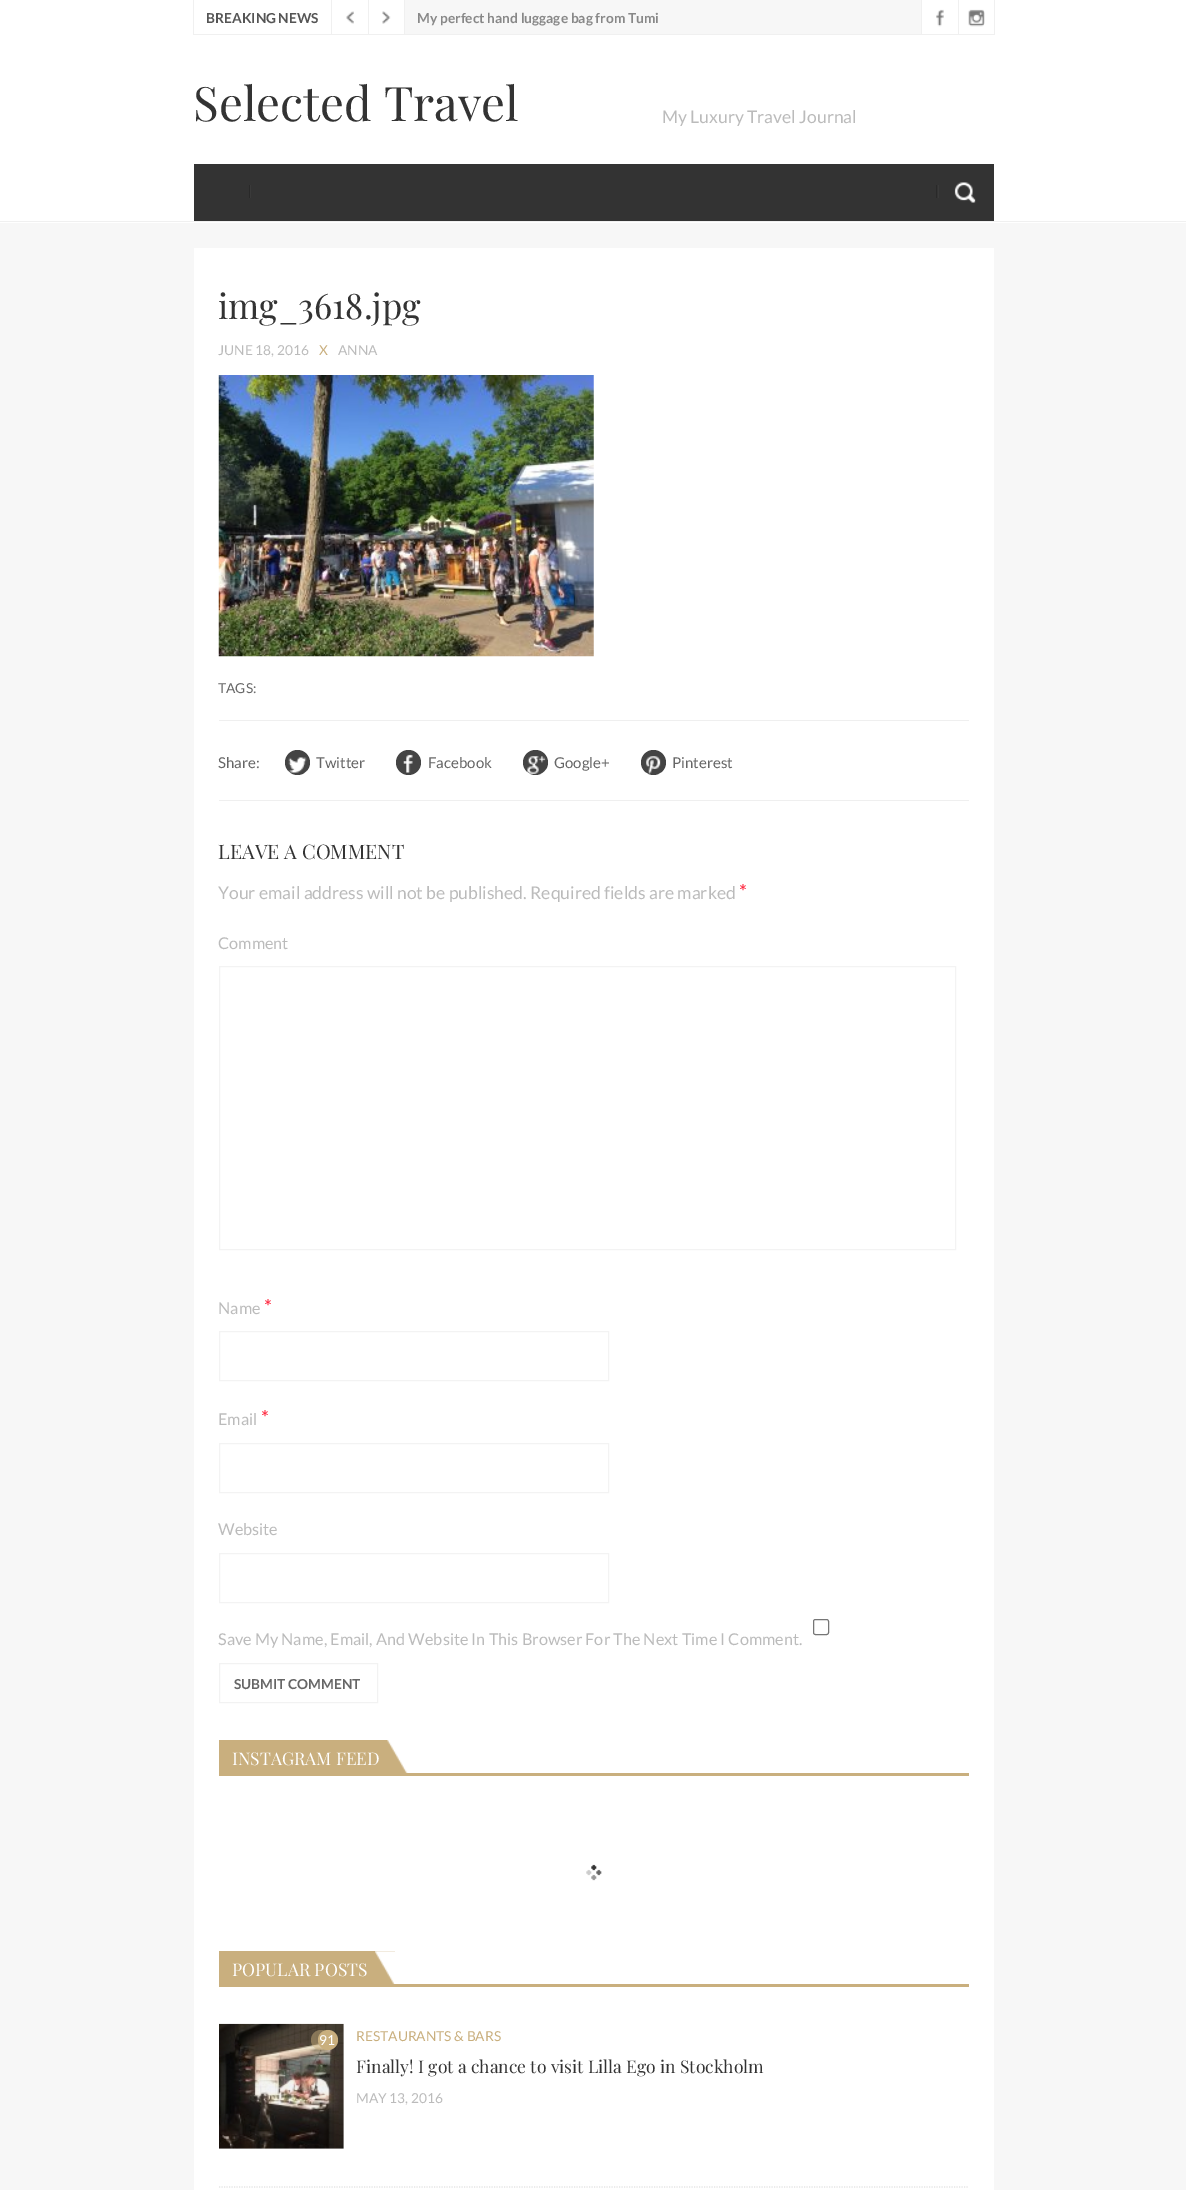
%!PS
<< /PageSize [1186 2190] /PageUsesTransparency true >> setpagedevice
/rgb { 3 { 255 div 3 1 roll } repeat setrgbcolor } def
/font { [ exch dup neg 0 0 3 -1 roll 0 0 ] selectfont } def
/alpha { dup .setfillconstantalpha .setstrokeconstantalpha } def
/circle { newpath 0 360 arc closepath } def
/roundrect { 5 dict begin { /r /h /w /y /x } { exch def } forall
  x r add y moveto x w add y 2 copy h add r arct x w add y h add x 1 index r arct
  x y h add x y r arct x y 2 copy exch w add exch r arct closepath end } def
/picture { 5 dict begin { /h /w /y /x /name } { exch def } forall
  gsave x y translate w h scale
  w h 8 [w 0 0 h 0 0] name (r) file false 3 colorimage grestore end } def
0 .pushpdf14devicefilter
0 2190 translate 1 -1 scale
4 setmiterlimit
247 247 247 rgb
0 0 1186 2190 rectfill
[
  [0 0 1186 223 255 255 255]
  [405 0 516 34 247 247 247]
  [994 0 1 35 240 240 240]
  [193 34 802 1 240 240 240]
  [193 0 1 35 240 240 240]
  [331 0 1 34 240 240 240]
] { aload pop rgb rectfill } forall
(img/1.rgb) 346 11 8 13 picture
368 0 1 34 rectfill
(img/2.rgb) 382 11 9 13 picture
404 0 1 34 rectfill
(img/3.rgb) 936 9 8 18 picture
921 0 1 34 rectfill
(img/4.rgb) 968 9 17 18 picture
[
  [958 0 1 34 240 240 240]
  [0 221 1186 1 240 240 240]
  [194 164 800 57 51 51 51]
  [250 185 1 13 58 58 58]
  [249 185 1 13 41 41 41]
] { aload pop rgb rectfill } forall
(img/5.rgb) 954 182 22 21 picture
[
  [938 185 1 13 58 58 58]
  [936 185 1 13 41 41 41]
  [194 248 800 1942 255 255 255]
  [219 2024 125 125 244 244 244]
] { aload pop rgb rectfill } forall
(img/6.rgb) 218 375 376 282 picture
239 239 239 rgb
219 720 750 1 rectfill
219 800 750 1 rectfill
68 68 68 rgb
297.5 762.5 12.5 circle fill
(img/7.rgb) 288 757 19 16 picture
408.5 762.5 12.5 circle fill
(img/8.rgb) 403 754 10 19 picture
535.5 762.5 12.5 circle fill
(img/9.rgb) 527 756 19 18 picture
653.5 762.5 12.5 circle fill
(img/10.rgb) 646 756 15 18 picture
243 243 243 rgb
219.5 966.5 736 283 rectstroke
219.5 1331.5 389 49 rectstroke
219.5 1443.5 389 49 rectstroke
219.5 1553.5 389 49 rectstroke
118 118 118 rgb
813.5 1619.5 15 15 2 roundrect stroke
242 242 242 rgb
219.5 1663.5 158 39 rectstroke
201 175 126 rgb
219 1740 189 33 rectfill
(img/11.rgb) 387 1740 21 33 picture
219 1773 750 3 rectfill
(img/12.rgb) 586 1864 16 17 picture
219 1951 176 33 rectfill
(img/13.rgb) 375 1951 20 33 picture
219 1984 750 3 rectfill
228 228 228 rgb
1.2 setlinewidth
[1.25 1.25] 0 setdash
219 2187 moveto 969 2187 lineto stroke
(img/14.rgb) 219 2023 125 126 picture
0.5 alpha
201 175 126 rgb
321 2040 10 circle fill
1 alpha
328 2040 10 circle fill
/Lato-Bold 13.75 font
85 85 85 rgb
206 23 moveto (BREAKING NEWS) show
136 136 136 rgb
417 23 moveto (My perfect hand luggage bag from Tumi) show
/PlayfairDisplay-Regular 47.5 font
51 51 51 rgb
193 121 moveto (Selected Travel) show
/Lato-Regular 17.5 font
187 187 187 rgb
662 123 moveto (My Luxury Travel Journal) show
/PlayfairDisplay-Regular 35 font
51 51 51 rgb
218 319 moveto (img_3618.jpg) show
/Lato-Regular 13.75 font
187 187 187 rgb
218 355 moveto (JUNE 18, 2016) show
201 175 126 rgb
319 355 moveto (X) show
187 187 187 rgb
338 355 moveto (ANNA) show
102 102 102 rgb
218 693 moveto (TAGS:) show
/Lato-Regular 15 font
[
  [(Share:) 218 768]
  [(Twitter) 316 768]
  [(Facebook) 428 768]
  [(Google+) 554 768]
  [(Pinterest) 672 768]
] { aload pop moveto show } forall
/PlayfairDisplay-Regular 20 font
51 51 51 rgb
218 859 moveto (LEAVE A COMMENT) show
/Lato-Regular 17.5 font
187 187 187 rgb
218 899 moveto (Your email address will not be published. Required fields are marked) show
/Lato-Regular 20 font
255 34 58 rgb
739 899 moveto (*) show
/Lato-Regular 16.25 font
187 187 187 rgb
218 949 moveto (Comment) show
218 1314 moveto (Name) show
/Lato-Regular 20 font
255 34 58 rgb
264 1314 moveto (*) show
/Lato-Regular 16.25 font
187 187 187 rgb
218 1425 moveto (Email) show
/Lato-Regular 20 font
255 34 58 rgb
261 1425 moveto (*) show
/Lato-Regular 16.25 font
187 187 187 rgb
218 1535 moveto (Website) show
218 1645 moveto (Save My Name, Email, And Website In This Browser For The Next Time I Comment.) show
/Lato-Bold 13.75 font
102 102 102 rgb
234 1689 moveto (SUBMIT COMMENT) show
/PlayfairDisplay-Regular 17.5 font
255 255 255 rgb
232 1765 moveto (INSTAGRAM FEED) show
232 1976 moveto (POPULAR POSTS) show
/Lato-Regular 13.75 font
319 2045 moveto (91) show
201 175 126 rgb
356 2041 moveto (RESTAURANTS & BARS) show
/PlayfairDisplay-Regular 17.5 font
51 51 51 rgb
356 2073 moveto (Finally! I got a chance to visit Lilla Ego in Stockholm) show
/Lato-Regular 13.75 font
187 187 187 rgb
356 2103 moveto (MAY 13, 2016) show
.poppdf14devicefilter showpage
